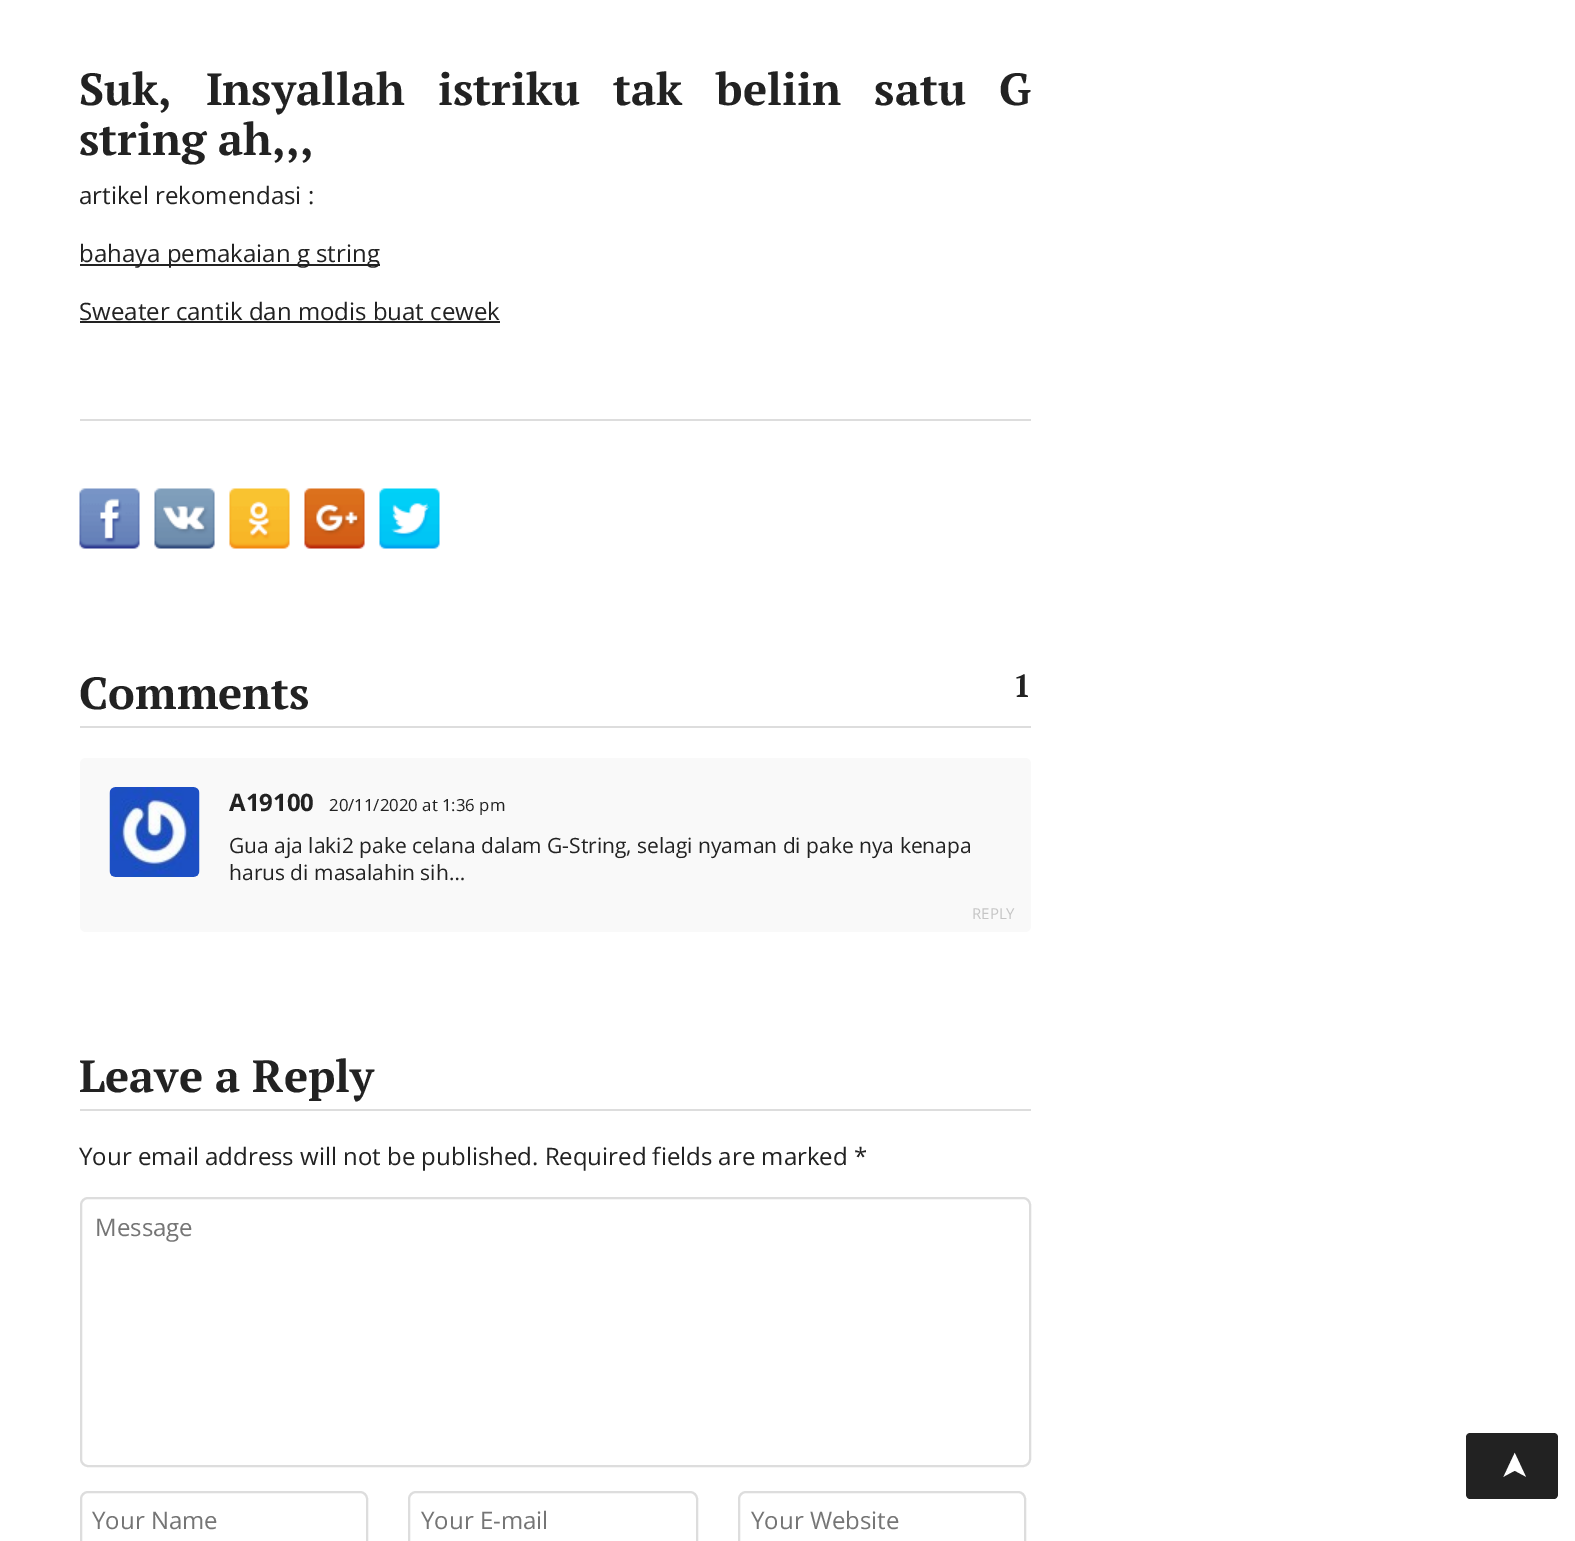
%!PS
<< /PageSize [1575 1541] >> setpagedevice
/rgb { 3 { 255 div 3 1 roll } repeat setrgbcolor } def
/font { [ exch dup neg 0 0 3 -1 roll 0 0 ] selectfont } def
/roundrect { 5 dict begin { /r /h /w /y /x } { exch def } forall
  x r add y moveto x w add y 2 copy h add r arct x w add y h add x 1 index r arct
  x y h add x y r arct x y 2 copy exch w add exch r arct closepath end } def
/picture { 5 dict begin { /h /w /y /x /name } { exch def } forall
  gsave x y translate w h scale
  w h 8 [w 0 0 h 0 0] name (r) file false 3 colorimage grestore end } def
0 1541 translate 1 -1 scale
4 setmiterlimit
255 255 255 rgb
0 0 1575 1541 rectfill
[
  [80 264 300 2 34 34 34]
  [80 321 420 2 34 34 34]
  [80 419 951 2 221 221 221]
] { aload pop rgb rectfill } forall
(img/1.rgb) 79 488 61 61 picture
(img/2.rgb) 154 488 61 61 picture
(img/3.rgb) 229 488 61 61 picture
(img/4.rgb) 304 488 61 61 picture
(img/5.rgb) 379 488 61 61 picture
80 726 951 2 rectfill
249 249 249 rgb
80 758 951 174 6 roundrect fill
(img/6.rgb) 109 787 91 90 picture
221 221 221 rgb
80 1109 951 2 rectfill
2 setlinewidth
81 1198 949 268 7 roundrect stroke
81 1492 286 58 7 roundrect stroke
409 1492 288 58 7 roundrect stroke
739 1492 286 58 7 roundrect stroke
34 34 34 rgb
1466 1494 moveto 1466 1437 lineto 1466 1435 1468 1433 1470 1433 curveto 1554 1433 lineto 1556 1433 1558 1435 1558 1437 curveto 1558 1494 lineto 1558 1497 1556 1499 1554 1499 curveto 1470 1499 lineto 1468 1499 1466 1497 1466 1494 curveto closepath fill
/PTSerif-Bold 45 font
79 105 moveto 21.5 0 32 (Suk, Insyallah istriku tak beliin satu G) widthshow
79 155 moveto (string ah,,,) show
/OpenSans-Regular 24 font
[
  [(artikel rekomendasi :) 79 204]
  [(bahaya pemakaian g string) 79 262]
  [(Sweater cantik dan modis buat cewek) 79 320]
] { aload pop moveto show } forall
/PTSerif-Bold 45 font
79 709 moveto (Comments) show
/PTSerif-Bold 32 font
1013 697 moveto (1) show
/OpenSans-Bold 24 font
229 811 moveto (A19100) show
/OpenSans-Regular 16.75 font
329 811 moveto (20/11/2020 at 1:36 pm) show
/OpenSans-Regular 21 font
229 853 moveto (Gua aja laki2 pake celana dalam G-String, selagi nyaman di pake nya kenapa) show
229 880 moveto (harus di masalahin sih…) show
/OpenSans-Regular 15 font
197 197 197 rgb
972 919 moveto (REPLY) show
/PTSerif-Bold 45 font
34 34 34 rgb
79 1092 moveto (Leave a Reply) show
/OpenSans-Regular 24 font
79 1165 moveto (Your email address will not be published. Required fields are marked *) show
117 117 117 rgb
[
  [(Message) 95 1236]
  [(Your Name) 92 1529]
  [(Your E-mail) 421 1529]
  [(Your Website) 751 1529]
] { aload pop moveto show } forall
/DejaVuSans-Regular 36 font
255 255 255 rgb
gsave 1526 1481 translate -90 rotate 0 0 moveto (➤) show grestore
showpage
